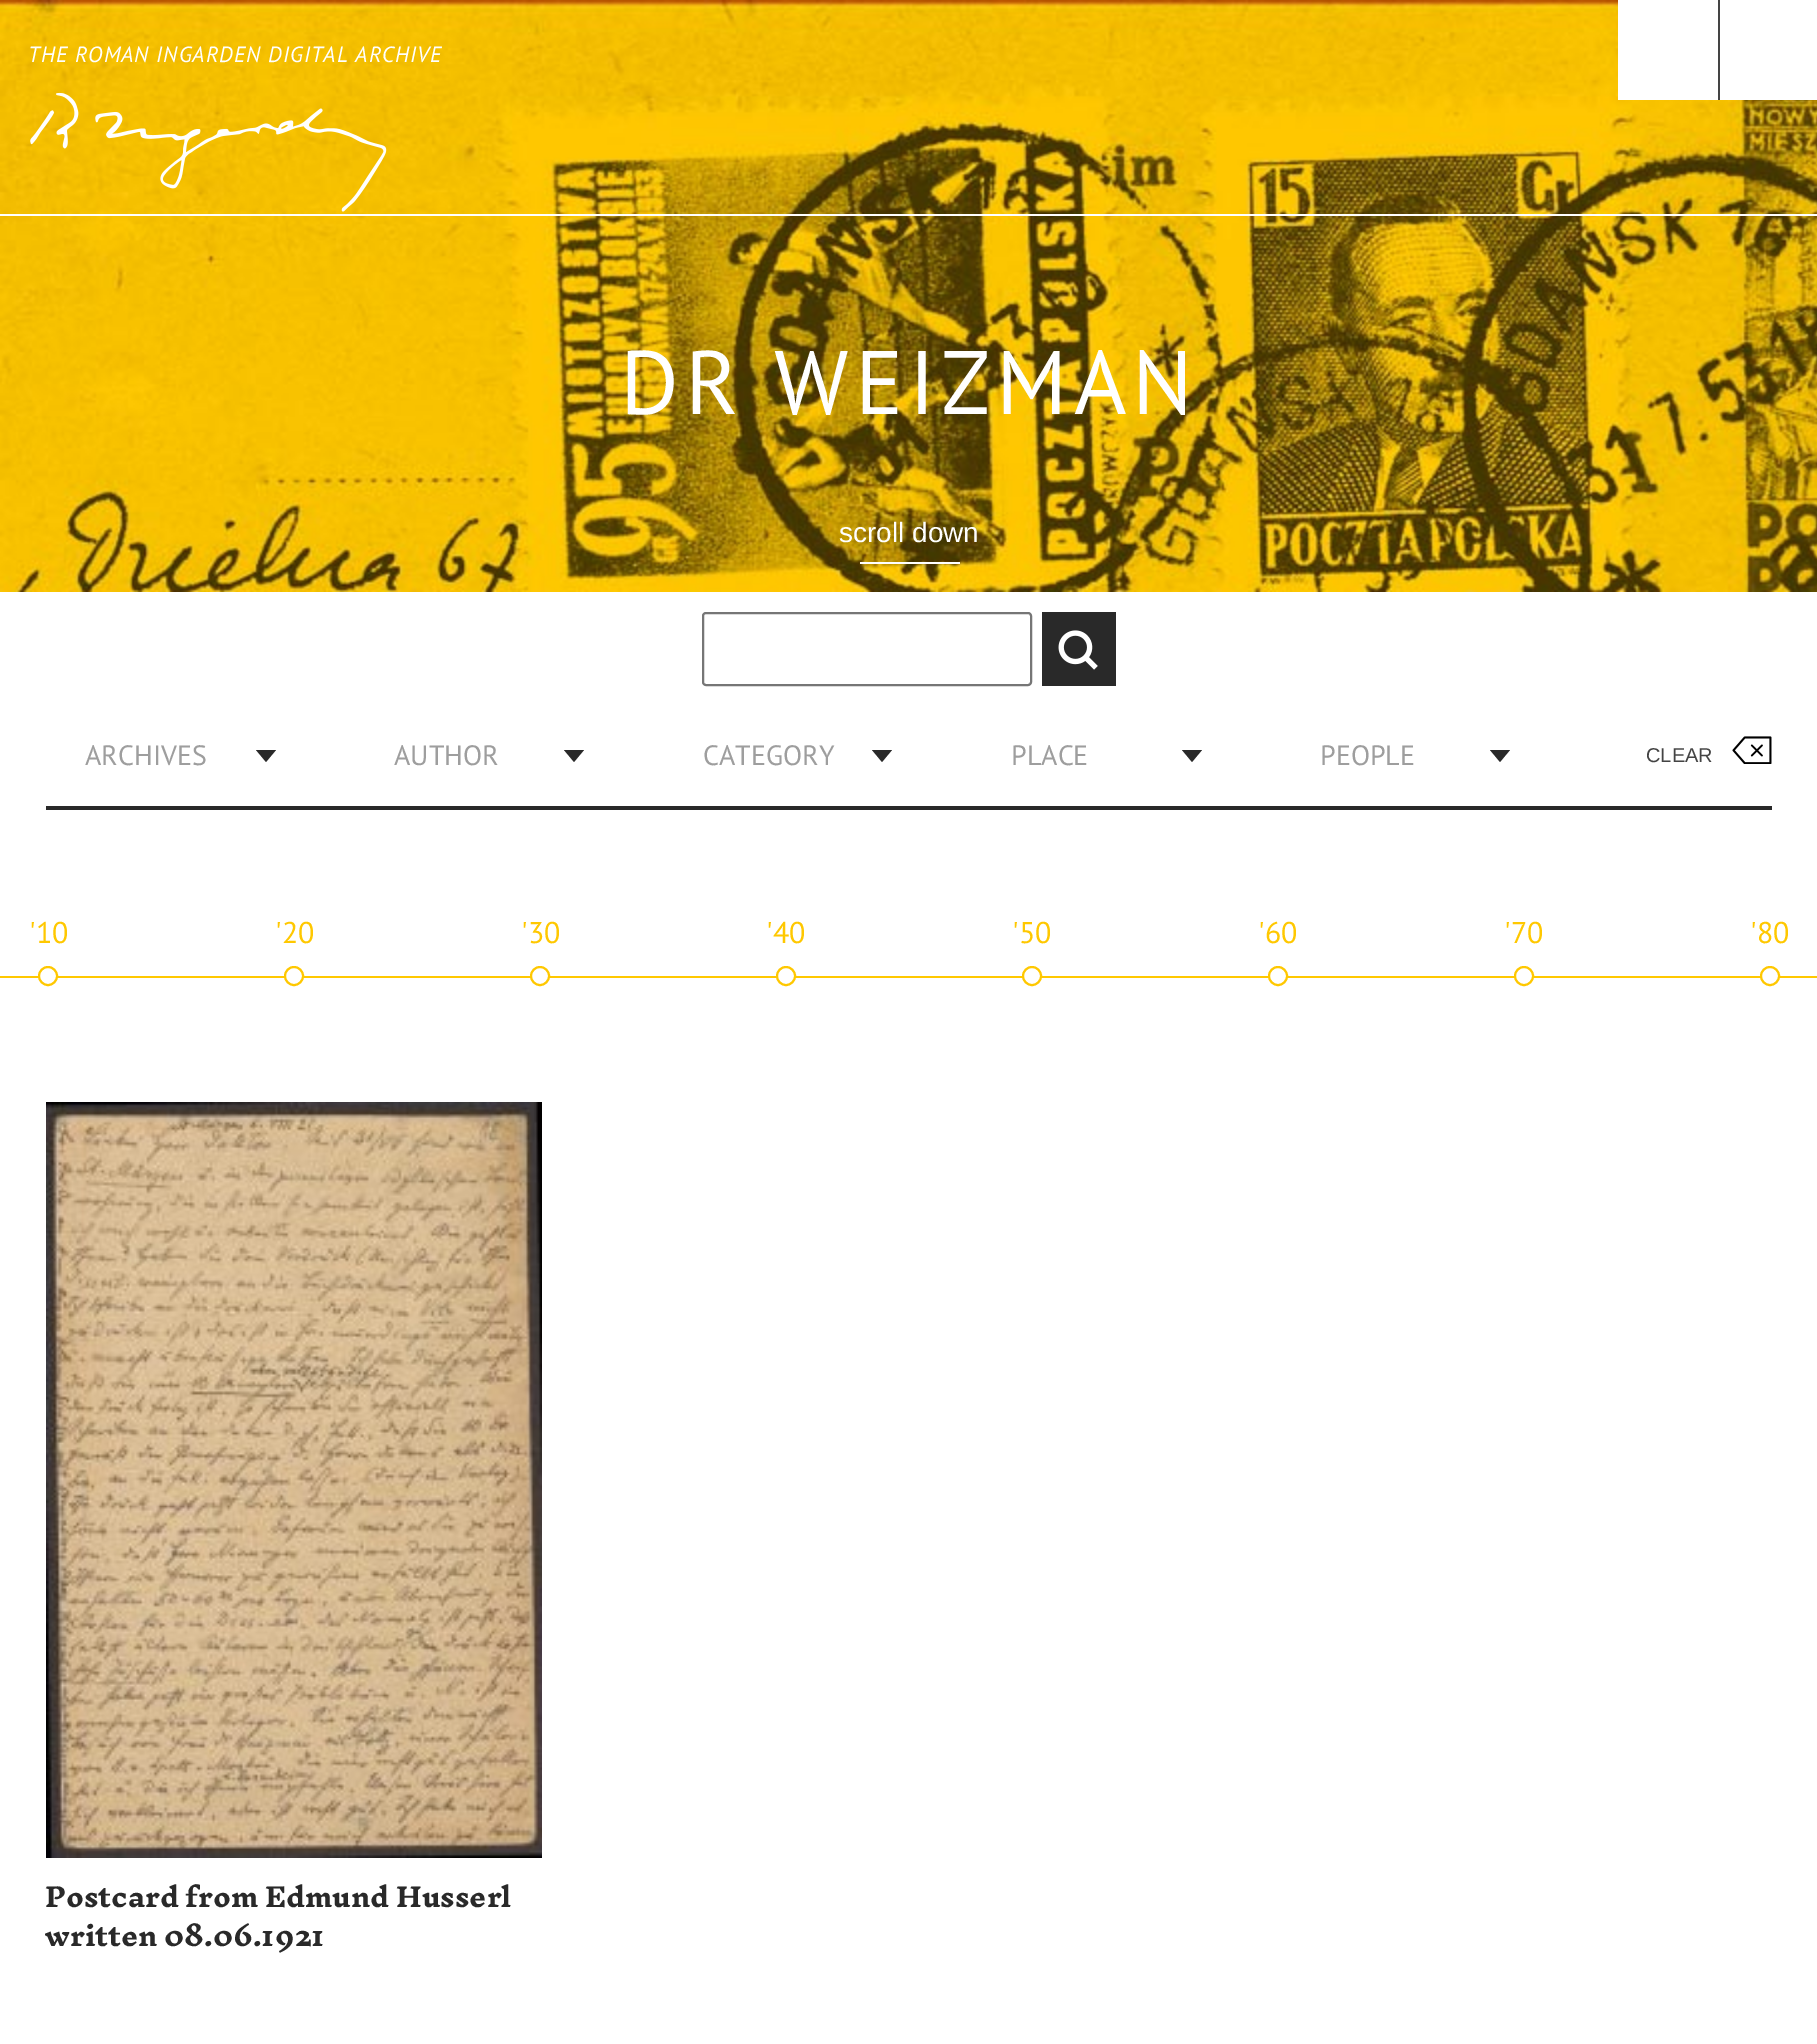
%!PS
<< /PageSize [1817 2044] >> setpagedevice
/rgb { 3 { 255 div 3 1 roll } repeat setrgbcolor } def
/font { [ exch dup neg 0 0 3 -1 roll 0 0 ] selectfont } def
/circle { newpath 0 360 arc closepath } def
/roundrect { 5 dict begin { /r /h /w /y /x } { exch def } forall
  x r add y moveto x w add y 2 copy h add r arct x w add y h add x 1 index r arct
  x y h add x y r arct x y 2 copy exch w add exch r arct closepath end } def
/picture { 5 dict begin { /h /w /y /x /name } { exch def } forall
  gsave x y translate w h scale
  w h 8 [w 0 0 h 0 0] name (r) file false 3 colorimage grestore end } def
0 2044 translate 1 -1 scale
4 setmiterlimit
255 255 255 rgb
0 0 1817 2044 rectfill
(img/1.rgb) 0 0 1817 592 picture
0 214 1817 2 rectfill
(img/2.rgb) 30 92 357 120 picture
[
  [1618 0 100 100 255 255 255]
  [1720 0 97 100 255 255 255]
  [1718 0 2 100 68 68 68]
  [860 562 100 2 255 255 255]
] { aload pop rgb rectfill } forall
118 118 118 rgb
2 setlinewidth
703 613 328 72 3 roundrect stroke
41 41 41 rgb
1042 612 74 74 rectfill
(img/3.rgb) 1058 630 40 40 picture
46 806 1726 4 rectfill
256 750 moveto 276 750 lineto 266 762 lineto closepath fill
564 750 moveto 584 750 lineto 574 762 lineto closepath fill
872 750 moveto 892 750 lineto 882 762 lineto closepath fill
1182 750 moveto 1202 750 lineto 1192 762 lineto closepath fill
1490 750 moveto 1510 750 lineto 1500 762 lineto closepath fill
(img/4.rgb) 1732 736 40 28 picture
255 200 0 rgb
0 976 1817 2 rectfill
255 255 255 rgb
48 976 9 circle gsave fill grestore
255 200 0 rgb
stroke
255 255 255 rgb
294 976 9 circle gsave fill grestore
255 200 0 rgb
stroke
255 255 255 rgb
540 976 9 circle gsave fill grestore
255 200 0 rgb
stroke
255 255 255 rgb
786 976 9 circle gsave fill grestore
255 200 0 rgb
stroke
255 255 255 rgb
1032 976 9 circle gsave fill grestore
255 200 0 rgb
stroke
255 255 255 rgb
1278 976 9 circle gsave fill grestore
255 200 0 rgb
stroke
255 255 255 rgb
1524 976 9 circle gsave fill grestore
255 200 0 rgb
stroke
255 255 255 rgb
1770 976 9 circle gsave fill grestore
255 200 0 rgb
stroke
(img/5.rgb) 46 1102 496 756 picture
/PTSans-Italic 22 font
255 255 255 rgb
28 62 moveto 1 0 (THE ROMAN INGARDEN DIGITAL ARCHIVE) ashow
/PTSans-Regular 90 font
620 414 moveto 6 0 (DR WEIZMAN) ashow
/LiberationSans-Regular 28 font
839 542 moveto (scroll down) show
/PTSans-Regular 28 font
158 158 158 rgb
[
  [(ARCHIVES) 85 765]
  [(AUTHOR) 394 765]
  [(CATEGORY) 703 765]
  [(PLACE) 1011 765]
  [(PEOPLE) 1320 765]
] { aload pop moveto show } forall
/LiberationSans-Regular 20 font
68 68 68 rgb
1646 762 moveto (CLEAR) show
/PTSans-Regular 30 font
255 200 0 rgb
[
  [('10) 29 943]
  [('20) 275 943]
  [('30) 521 943]
  [('40) 766 943]
  [('50) 1012 943]
  [('60) 1258 943]
  [('70) 1504 943]
  [('80) 1750 943]
] { aload pop moveto show } forall
/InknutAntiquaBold-Bold 26 font
41 41 41 rgb
45 1907 moveto (Postcard from Edmund Husserl) show
45 1946 moveto (written 08.06.1921) show
showpage
